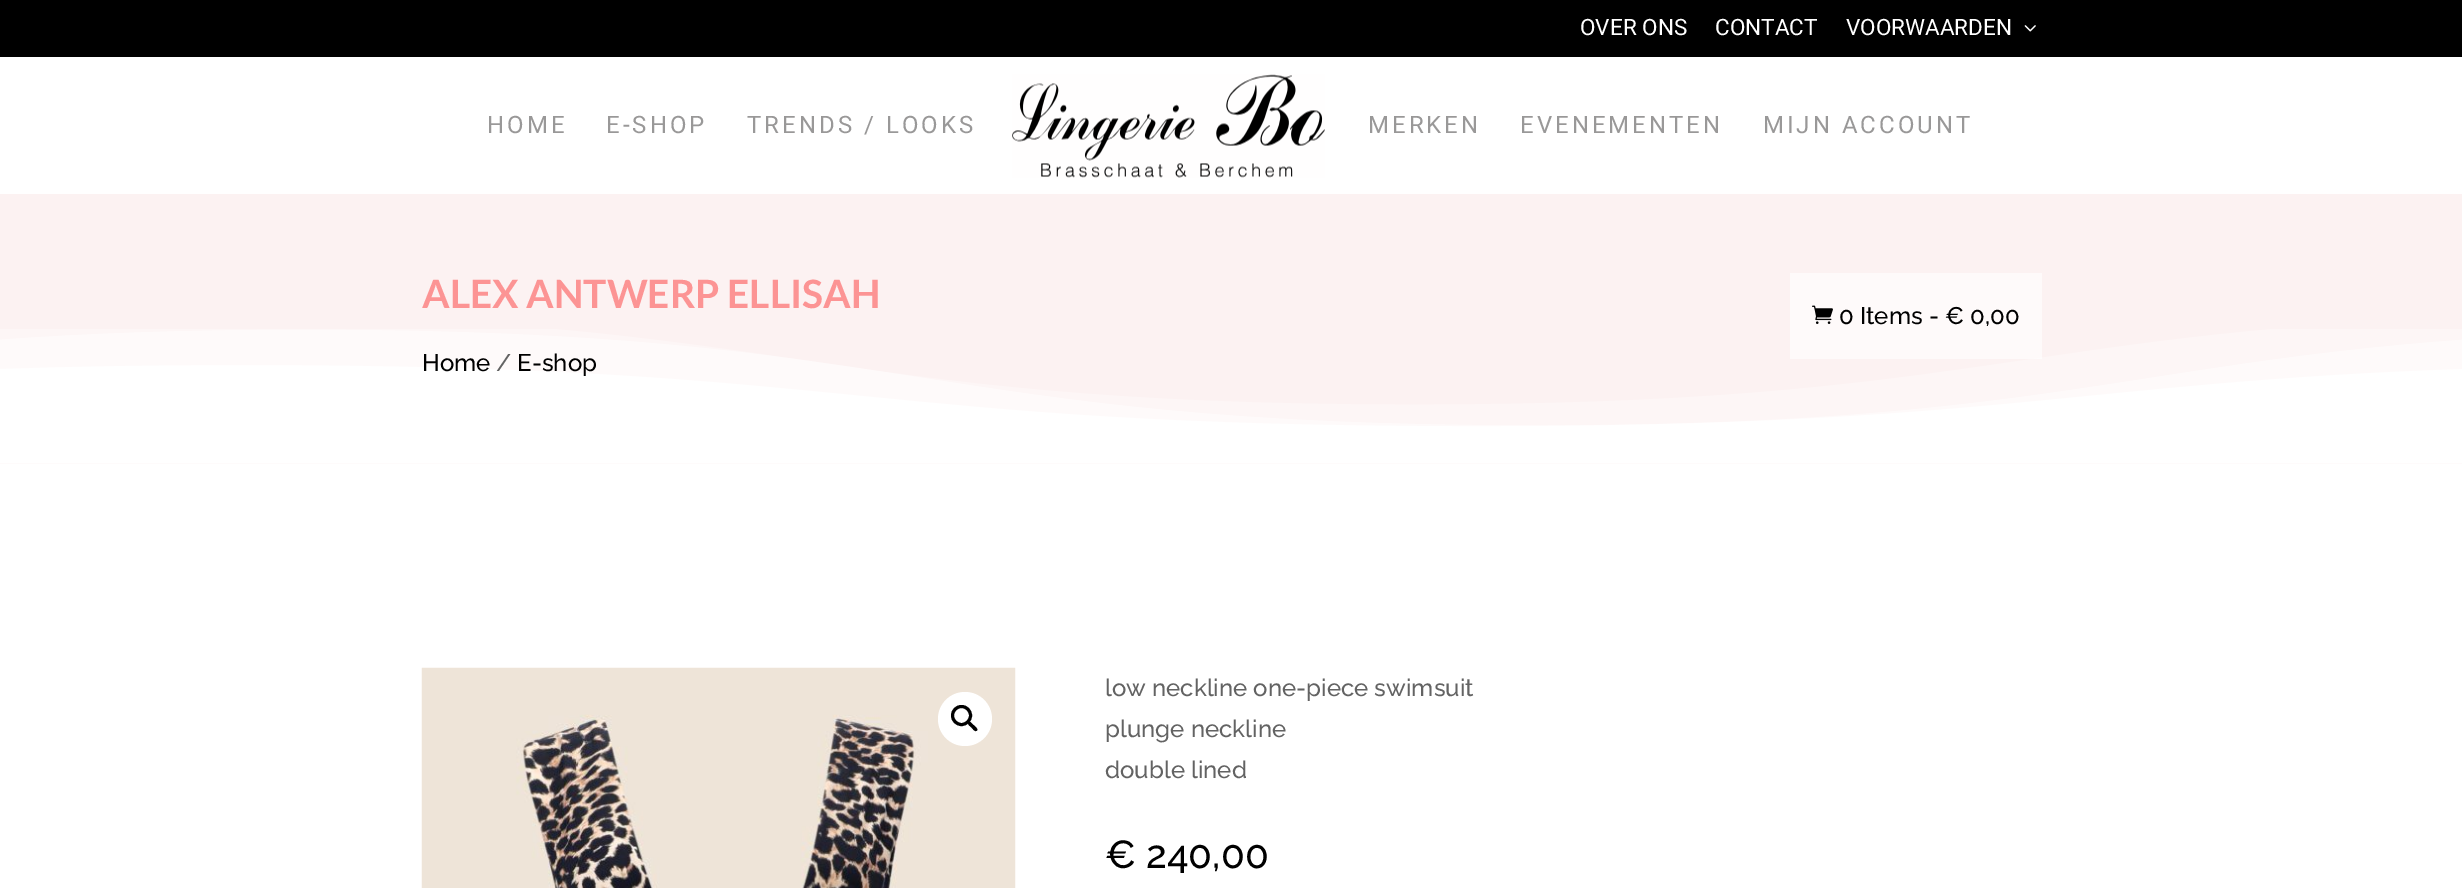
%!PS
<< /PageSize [2462 888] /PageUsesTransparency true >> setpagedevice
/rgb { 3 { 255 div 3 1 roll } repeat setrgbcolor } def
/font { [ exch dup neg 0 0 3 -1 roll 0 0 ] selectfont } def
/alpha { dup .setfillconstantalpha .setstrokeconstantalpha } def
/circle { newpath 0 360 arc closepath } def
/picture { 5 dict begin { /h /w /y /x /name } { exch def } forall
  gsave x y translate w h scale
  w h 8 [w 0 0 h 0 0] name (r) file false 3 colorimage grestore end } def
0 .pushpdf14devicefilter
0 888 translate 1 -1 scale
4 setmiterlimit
255 255 255 rgb
0 0 2462 888 rectfill
0 0 0 rgb
0 0 2462 57 rectfill
(img/1.rgb) 2024 25 12 7 picture
(img/2.rgb) 1012 74 313 104 picture
252 242 242 rgb
0 194 2462 270 rectfill
(img/4.rgb) 0 329 2462 135 picture
0.61 alpha
255 255 255 rgb
1790 273 252 86 rectfill
1 alpha
(img/3.rgb) 1812 305 21 19 picture
(img/5.rgb) 421 667 595 221 picture
965 719 27 circle fill
0 0 0 rgb
3 setlinewidth
961.5 715.5 9 circle stroke
968.5 722 moveto 970 720.5 972.5 724.5 973.5 725 curveto 974.5 726 978.5 729 977 730.5 curveto 975 732.5 972.5 728.5 971.5 727.5 curveto 970.5 726.5 966.5 724 968.5 722 curveto closepath fill
/Roboto-Regular 22.5 font
255 255 255 rgb
[
  [(OVER ONS) 1580 35]
  [(CONTACT) 1715 35]
  [(VOORWAARDEN) 1846 35]
] { aload pop moveto show } forall
/Roboto-Regular 24 font
153 152 152 rgb
487 133 moveto 3 0 (HOME) ashow
606 133 moveto 3 0 (E-SHOP) ashow
747 133 moveto 3 0 (TRENDS / LOOKS) ashow
1368 133 moveto 3 0 (MERKEN) ashow
1520 133 moveto 3 0 (EVENEMENTEN) ashow
1763 133 moveto 3 0 (MIJN ACCOUNT) ashow
/Lato-Bold 39 font
252 148 148 rgb
422 308 moveto (ALEX ANTWERP ELLISAH) show
/Raleway-Medium 24 font
0 0 0 rgb
422 371 moveto (Home) show
99 99 99 rgb
496 371 moveto (/) show
0 0 0 rgb
517 371 moveto (E-shop) show
1839 324 moveto (0 Items - € 0,00) show
99 99 99 rgb
[
  [(low neckline one-piece swimsuit) 1105 696]
  [(plunge neckline) 1105 737]
  [(double lined) 1105 778]
] { aload pop moveto show } forall
/Raleway-Medium 39 font
0 0 0 rgb
1105 868 moveto (€ 240,00) show
.poppdf14devicefilter showpage
